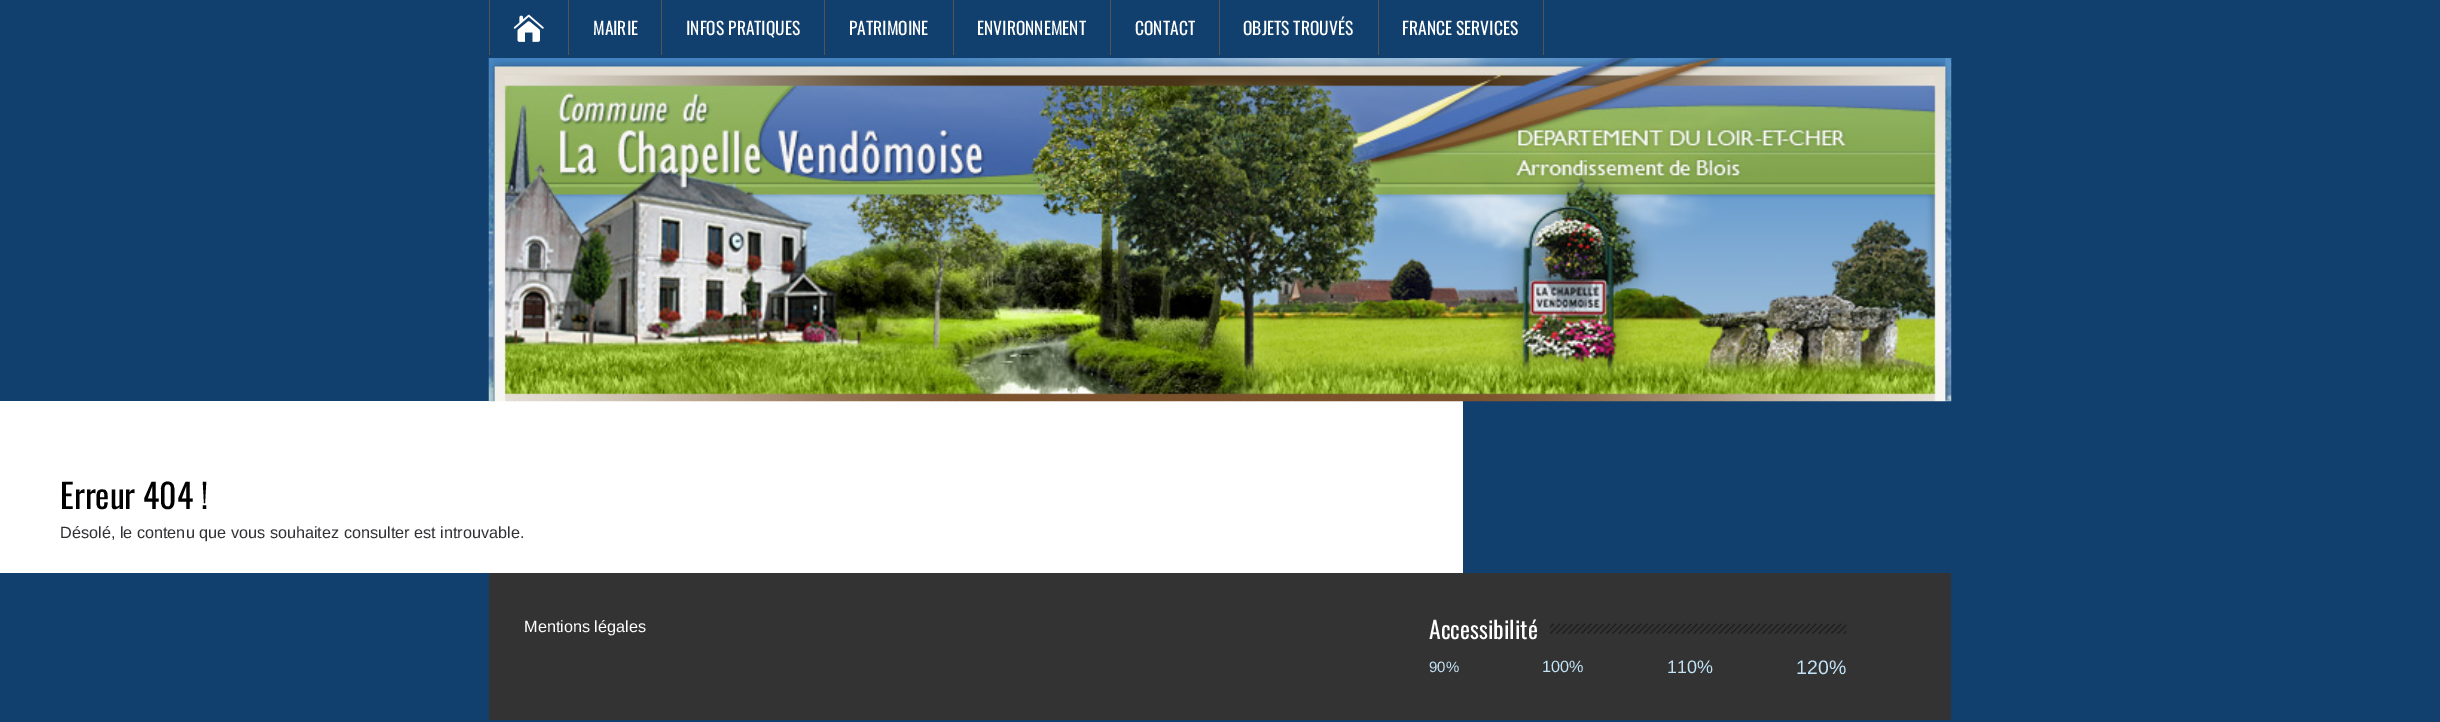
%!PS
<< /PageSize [2440 722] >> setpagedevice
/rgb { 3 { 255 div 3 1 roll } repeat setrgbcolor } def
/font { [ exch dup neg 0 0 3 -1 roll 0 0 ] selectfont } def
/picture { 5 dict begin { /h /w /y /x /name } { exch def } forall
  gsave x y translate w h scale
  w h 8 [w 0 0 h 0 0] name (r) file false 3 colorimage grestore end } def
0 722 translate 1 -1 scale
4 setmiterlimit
18 64 110 rgb
0 0 2440 722 rectfill
255 255 255 rgb
0 401 1463 172 rectfill
(img/2.rgb) 488 57 1464 345 picture
[
  [489 57 1462 1 18 64 110]
  [489 0 1 55 84 84 84]
  [568 0 1 55 84 84 84]
] { aload pop rgb rectfill } forall
(img/1.rgb) 513 14 31 28 picture
[
  [661 0 1 55 84 84 84]
  [824 0 1 55 84 84 84]
  [953 0 1 55 84 84 84]
  [1110 0 1 55 84 84 84]
  [1219 0 1 55 84 84 84]
  [1378 0 1 55 84 84 84]
  [1543 0 1 55 84 84 84]
  [489 573 1462 147 51 51 51]
] { aload pop rgb rectfill } forall
(img/3.rgb) 1428 623 419 11 picture
1429 623 121 11 rectfill
/Oswald-Regular 17.5 font
255 255 255 rgb
[
  [(MAIRIE) 593 35]
  [(INFOS PRATIQUES) 686 35]
  [(PATRIMOINE) 849 35]
  [(ENVIRONNEMENT) 977 35]
  [(CONTACT) 1135 35]
  [(OBJETS TROUVÉS) 1243 35]
  [(FRANCE SERVICES) 1402 35]
] { aload pop moveto show } forall
/Oswald-Regular 33.75 font
0 0 0 rgb
60 509 moveto (Erreur 404 !) show
/LiberationSans-Regular 16.25 font
49 49 53 rgb
60 538 moveto (Désolé, le contenu que vous souhaitez consulter est introuvable.) show
255 255 255 rgb
524 632 moveto (Mentions légales) show
/Oswald-Regular 23.75 font
1429 639 moveto (Accessibilité) show
/LiberationSans-Regular 15 font
194 227 245 rgb
1429 672 moveto (90%) show
/LiberationSans-Regular 16.25 font
1542 672 moveto (100%) show
/LiberationSans-Regular 18 font
1667 673 moveto (110%) show
/LiberationSans-Regular 19.5 font
1796 674 moveto (120%) show
showpage
